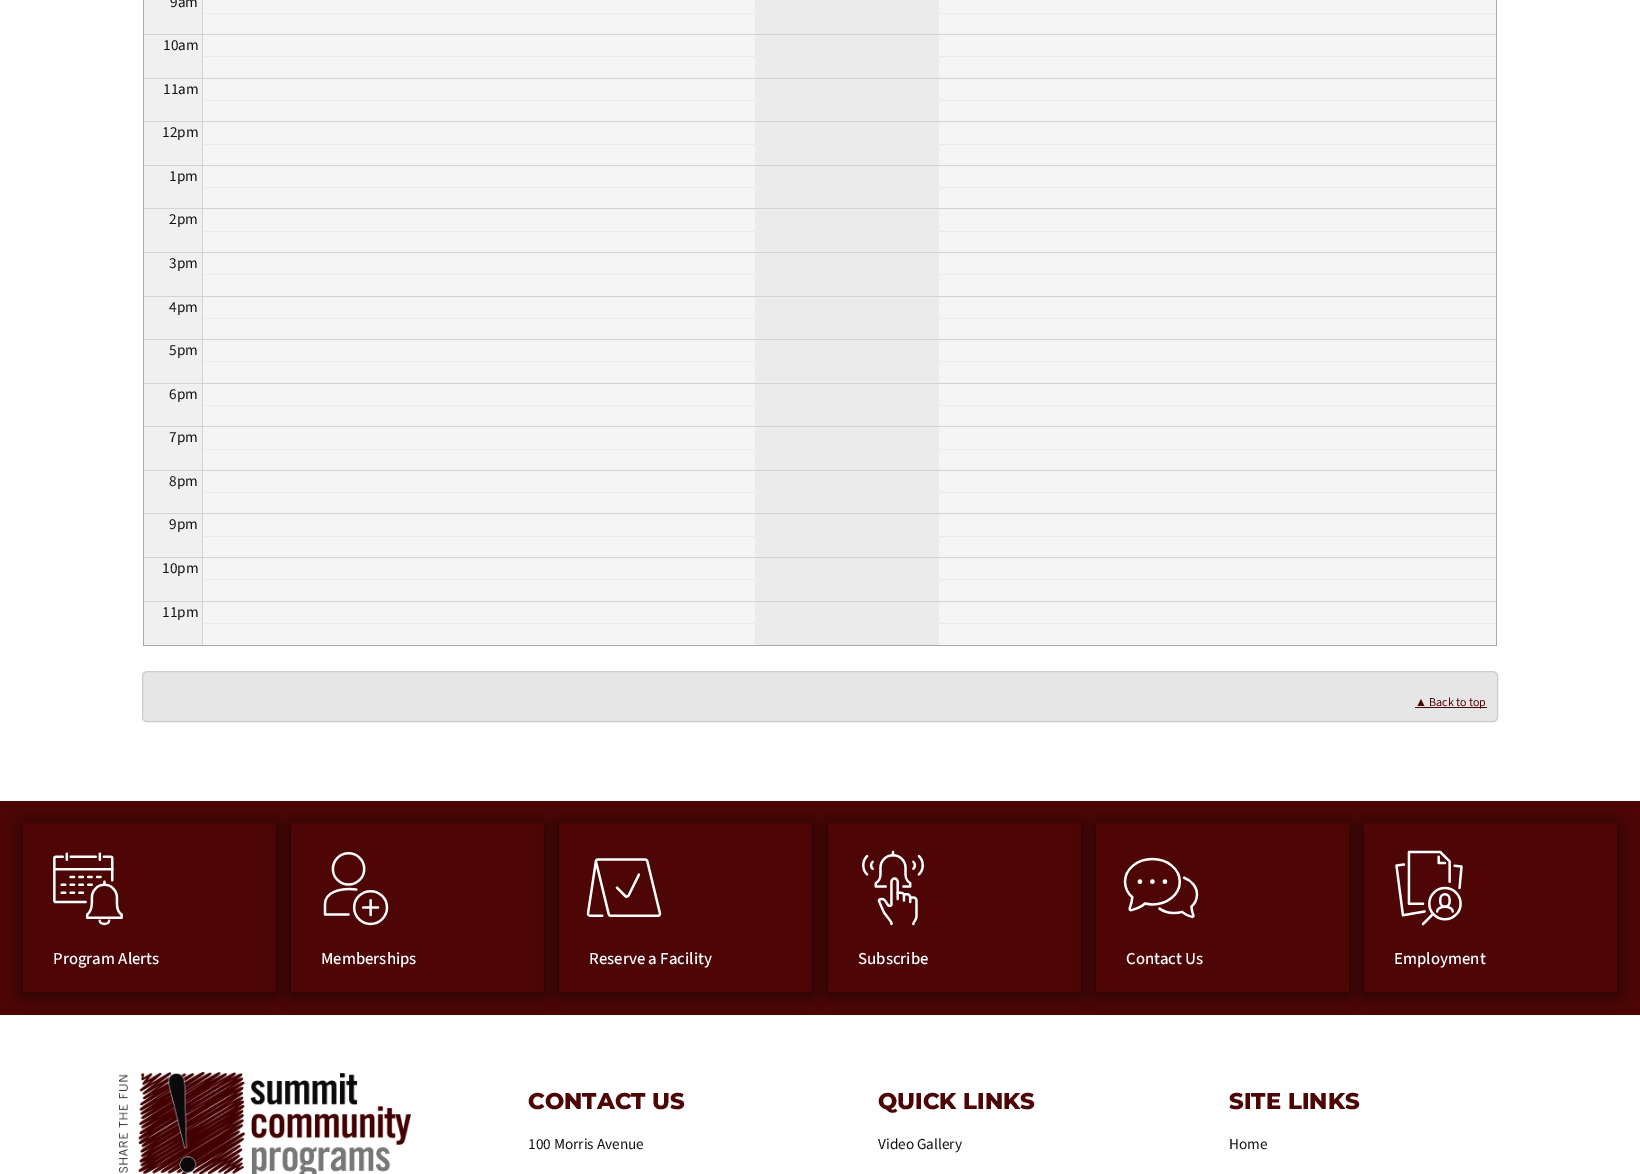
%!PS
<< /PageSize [1640 1174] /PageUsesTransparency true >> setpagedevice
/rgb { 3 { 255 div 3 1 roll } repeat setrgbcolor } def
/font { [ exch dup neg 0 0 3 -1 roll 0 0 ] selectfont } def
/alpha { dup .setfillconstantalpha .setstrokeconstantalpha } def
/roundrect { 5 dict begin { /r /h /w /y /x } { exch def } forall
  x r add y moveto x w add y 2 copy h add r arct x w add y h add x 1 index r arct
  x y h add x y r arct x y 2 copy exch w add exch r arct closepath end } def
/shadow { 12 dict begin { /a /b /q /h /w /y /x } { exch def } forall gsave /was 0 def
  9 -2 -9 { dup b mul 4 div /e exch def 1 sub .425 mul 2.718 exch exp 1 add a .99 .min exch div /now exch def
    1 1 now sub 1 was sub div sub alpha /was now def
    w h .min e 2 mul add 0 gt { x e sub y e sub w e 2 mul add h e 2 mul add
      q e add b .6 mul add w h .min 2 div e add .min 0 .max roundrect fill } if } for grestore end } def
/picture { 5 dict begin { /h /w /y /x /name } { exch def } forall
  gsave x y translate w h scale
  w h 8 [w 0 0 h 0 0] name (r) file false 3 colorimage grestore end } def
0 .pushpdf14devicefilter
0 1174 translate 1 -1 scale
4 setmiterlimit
255 255 255 rgb
0 0 1640 1174 rectfill
[
  [203 0 1293 645 245 245 245]
  [1496 0 1 646 169 169 169]
  [143 645 1354 1 169 169 169]
  [143 0 1 646 169 169 169]
  [144 644 58 1 240 240 240]
  [202 644 1 1 211 211 211]
  [755 0 184 645 235 235 235]
  [144 0 58 34 240 240 240]
  [202 0 1 34 211 211 211]
  [203 13 1293 1 235 235 235]
  [144 35 58 43 240 240 240]
  [144 34 1352 1 211 211 211]
  [202 34 1 44 211 211 211]
  [203 56 1293 1 235 235 235]
  [144 79 58 42 240 240 240]
  [144 78 1352 1 211 211 211]
  [202 78 1 43 211 211 211]
  [203 100 1293 1 235 235 235]
  [144 122 58 43 240 240 240]
  [144 121 1352 1 211 211 211]
  [202 121 1 44 211 211 211]
  [203 144 1293 1 235 235 235]
  [144 166 58 42 240 240 240]
  [144 165 1352 1 211 211 211]
  [202 165 1 43 211 211 211]
  [203 187 1293 1 235 235 235]
  [144 209 58 43 240 240 240]
  [144 208 1352 1 211 211 211]
  [202 208 1 44 211 211 211]
  [203 231 1293 1 235 235 235]
  [144 253 58 43 240 240 240]
  [144 252 1352 1 211 211 211]
  [202 252 1 44 211 211 211]
  [203 274 1293 1 235 235 235]
  [144 297 58 42 240 240 240]
  [144 296 1352 1 211 211 211]
  [202 296 1 43 211 211 211]
  [203 318 1293 1 235 235 235]
  [144 340 58 43 240 240 240]
  [144 339 1352 1 211 211 211]
  [202 339 1 44 211 211 211]
  [203 361 1293 1 235 235 235]
  [144 384 58 42 240 240 240]
  [144 383 1352 1 211 211 211]
  [202 383 1 43 211 211 211]
  [203 405 1293 1 235 235 235]
  [144 427 58 43 240 240 240]
  [144 426 1352 1 211 211 211]
  [202 426 1 44 211 211 211]
  [203 449 1293 1 235 235 235]
  [144 471 58 42 240 240 240]
  [144 470 1352 1 211 211 211]
  [202 470 1 43 211 211 211]
  [203 492 1293 1 235 235 235]
  [144 514 58 43 240 240 240]
  [144 513 1352 1 211 211 211]
  [202 513 1 44 211 211 211]
  [203 536 1293 1 235 235 235]
  [144 558 58 43 240 240 240]
  [144 557 1352 1 211 211 211]
  [202 557 1 44 211 211 211]
  [203 579 1293 1 235 235 235]
  [144 602 58 42 240 240 240]
  [144 601 1352 1 211 211 211]
  [202 601 1 43 211 211 211]
  [203 623 1293 1 235 235 235]
] { aload pop rgb rectfill } forall
230 230 230 rgb
142.5 671.5 1355 50 4.5 roundrect gsave fill grestore
204 204 204 rgb
stroke
78 5 5 rgb
1415 707 72 1 rectfill
0 801 1640 214 rectfill
0 0 0 rgb
23 825 253 169 0 10 0.6 shadow
78 5 5 rgb
23 823 253 169 rectfill
(img/1.rgb) 53 852 70 74 picture
0 0 0 rgb
291 825 253 169 0 10 0.6 shadow
78 5 5 rgb
291 823 253 169 rectfill
(img/2.rgb) 323 852 66 74 picture
0 0 0 rgb
559 825 253 169 0 10 0.6 shadow
78 5 5 rgb
559 823 253 169 rectfill
(img/3.rgb) 586 858 76 59 picture
0 0 0 rgb
828 825 253 169 0 10 0.6 shadow
78 5 5 rgb
828 823 253 169 rectfill
(img/4.rgb) 862 850 62 76 picture
0 0 0 rgb
1096 825 253 169 0 10 0.6 shadow
78 5 5 rgb
1096 823 253 169 rectfill
(img/5.rgb) 1123 857 76 62 picture
0 0 0 rgb
1364 825 253 169 0 10 0.6 shadow
78 5 5 rgb
1364 823 253 169 rectfill
(img/6.rgb) 1395 850 68 76 picture
(img/7.rgb) 119 1072 292 102 picture
/SourceSans3-Regular 15.25 font
18 18 18 rgb
[
  [(9am) 170 7]
  [(10am) 163 50]
  [(11am) 163 94]
  [(12pm) 162 137]
  [(1pm) 169 181]
  [(2pm) 169 224]
  [(3pm) 169 268]
  [(4pm) 169 312]
  [(5pm) 169 355]
  [(6pm) 169 399]
  [(7pm) 169 442]
  [(8pm) 169 486]
  [(9pm) 169 529]
  [(10pm) 162 573]
  [(11pm) 162 617]
] { aload pop moveto show } forall
/LiberationSerif-Regular 12 font
78 5 5 rgb
1415 706 moveto (▲) show
/SourceSans3-Regular 12 font
1429 706 moveto (Back to top) show
/SourceSans3-Medium 16.75 font
255 255 255 rgb
[
  [(Program Alerts) 53 964]
  [(Memberships) 321 964]
  [(Reserve a Facility) 589 964]
  [(Subscribe) 858 964]
  [(Contact Us) 1126 964]
  [(Employment) 1394 964]
] { aload pop moveto show } forall
/Montserrat-ExtraBold 22.75 font
78 5 5 rgb
528 1109 moveto (CONTACT US) show
/SourceSans3-Regular 15.25 font
18 18 18 rgb
528 1149 moveto (100 Morris Avenue) show
/Montserrat-ExtraBold 22.75 font
78 5 5 rgb
878 1109 moveto (QUICK LINKS) show
/SourceSans3-Regular 15.25 font
18 18 18 rgb
878 1149 moveto (Video Gallery) show
/Montserrat-ExtraBold 22.75 font
78 5 5 rgb
1229 1109 moveto (SITE LINKS) show
/SourceSans3-Regular 15.25 font
18 18 18 rgb
1229 1149 moveto (Home) show
.poppdf14devicefilter showpage
